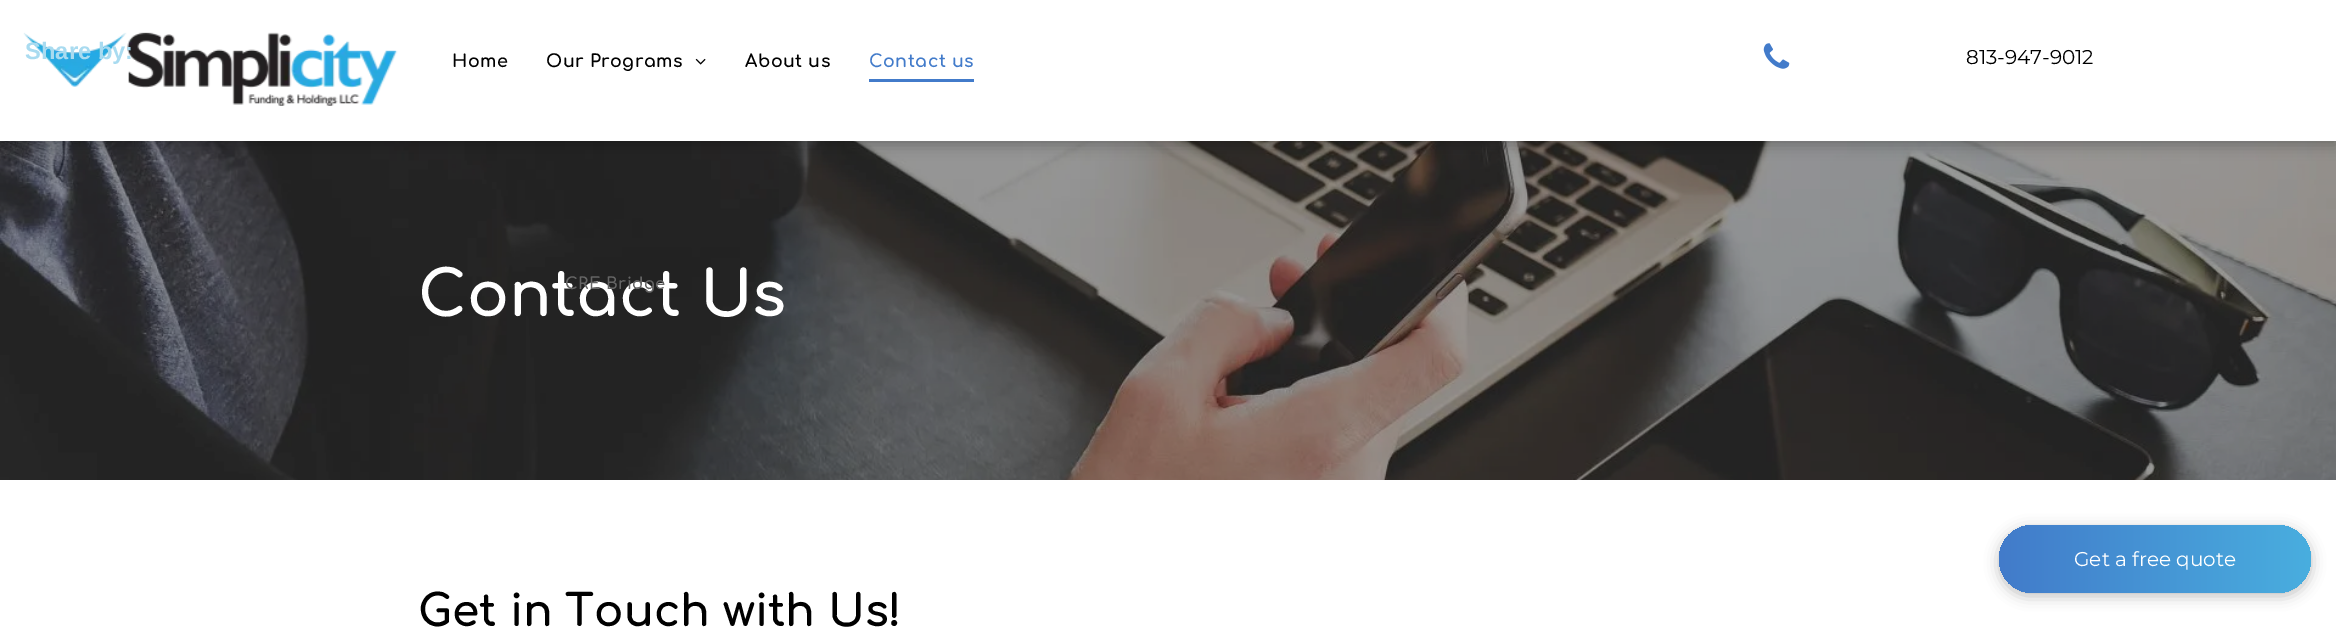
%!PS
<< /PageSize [2336 642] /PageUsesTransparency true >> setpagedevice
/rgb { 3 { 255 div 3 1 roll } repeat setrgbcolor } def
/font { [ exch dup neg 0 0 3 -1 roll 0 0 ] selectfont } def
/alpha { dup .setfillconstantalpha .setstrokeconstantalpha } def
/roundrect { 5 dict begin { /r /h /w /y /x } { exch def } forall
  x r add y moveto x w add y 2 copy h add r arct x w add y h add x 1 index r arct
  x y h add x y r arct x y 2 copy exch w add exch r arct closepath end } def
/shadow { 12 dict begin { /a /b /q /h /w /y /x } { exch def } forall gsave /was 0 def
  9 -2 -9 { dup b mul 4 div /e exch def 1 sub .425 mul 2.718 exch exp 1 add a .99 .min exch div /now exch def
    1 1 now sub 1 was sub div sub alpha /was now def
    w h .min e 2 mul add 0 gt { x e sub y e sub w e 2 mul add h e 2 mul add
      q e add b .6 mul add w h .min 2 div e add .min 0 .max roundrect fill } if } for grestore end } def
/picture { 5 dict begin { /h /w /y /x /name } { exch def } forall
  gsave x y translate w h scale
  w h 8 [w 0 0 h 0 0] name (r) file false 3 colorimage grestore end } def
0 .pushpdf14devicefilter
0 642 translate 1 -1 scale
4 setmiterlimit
255 255 255 rgb
0 0 2336 642 rectfill
(img/4.rgb) 0 141 2336 339 picture
0 0 0 rgb
0 4 2336 141 0 7 0.25 shadow
255 255 255 rgb
0 0 2336 141 rectfill
(img/1.rgb) 23 32 375 74 picture
(img/2.rgb) 695 58 11 7 picture
66 123 202 rgb
869 79 105 3 rectfill
(img/3.rgb) 1763 43 27 26 picture
0 0 0 rgb
1999 529 312 67 33.5 7 0.25 shadow
gsave 1999 525 312 68 34 roundrect clip newpath
<< /ShadingType 2 /ColorSpace /DeviceRGB /Coords [1999 559 2311 559] /Extend [true true] /Function << /FunctionType 2 /Domain [0 1] /C0 [0.259 0.482 0.792] /C1 [0.286 0.682 0.875] /N 1 >> >> shfill grestore
/LiberationSans-Bold 23.75 font
169 219 240 rgb
25 59 moveto (Share by:) show
/Comfortaa-Bold 17.5 font
0 0 0 rgb
452 67 moveto 0.5 0 (Home) ashow
546 67 moveto 0.5 0 (Our Programs) ashow
745 67 moveto 0.5 0 (About us) ashow
66 123 202 rgb
869 67 moveto 0.5 0 (Contact us) ashow
/Montserrat-Regular 20 font
0 0 0 rgb
1966 64 moveto (813-947-9012) show
/Comfortaa-Bold 62.5 font
255 255 255 rgb
418 316 moveto (Contact Us) show
/Comfortaa-Bold 16.25 font
101 101 101 rgb
565 289 moveto 0.5 0 (CRE Bridge) ashow
/Comfortaa-Bold 43.75 font
0 0 0 rgb
418 626 moveto (Get in Touch with Us!) show
/Montserrat-Regular 20 font
255 255 255 rgb
2074 566 moveto (Get a free quote) show
.poppdf14devicefilter showpage
